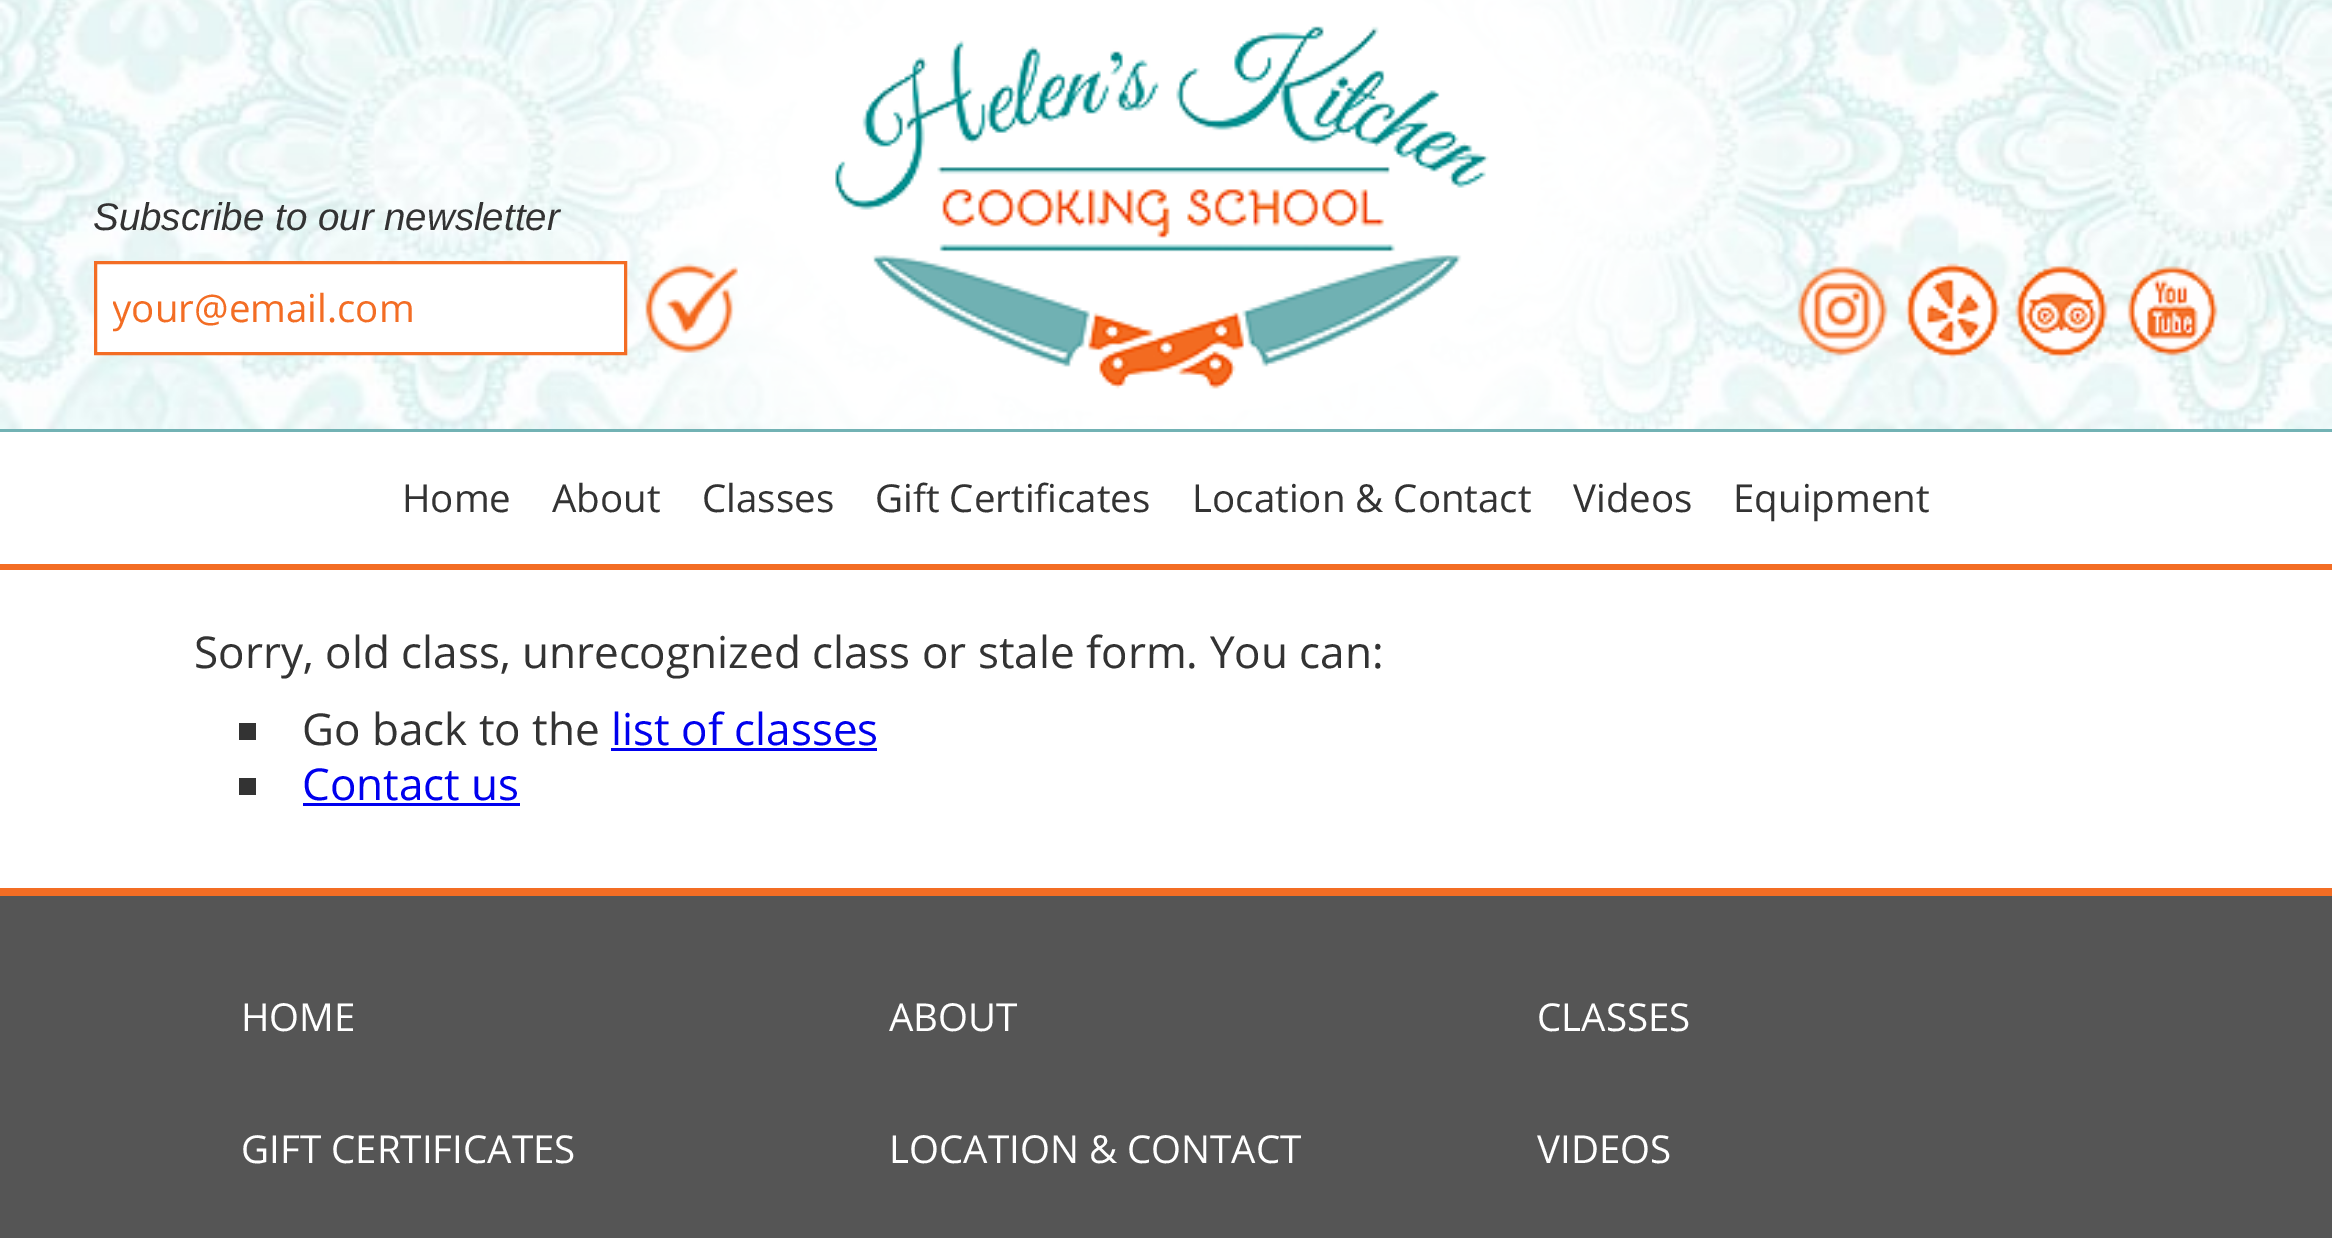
%!PS
<< /PageSize [2332 1238] >> setpagedevice
/rgb { 3 { 255 div 3 1 roll } repeat setrgbcolor } def
/font { [ exch dup neg 0 0 3 -1 roll 0 0 ] selectfont } def
/picture { 5 dict begin { /h /w /y /x /name } { exch def } forall
  gsave x y translate w h scale
  w h 8 [w 0 0 h 0 0] name (r) file false 3 colorimage grestore end } def
0 1238 translate 1 -1 scale
4 setmiterlimit
255 255 255 rgb
0 0 2332 1238 rectfill
(img/1.rgb) 0 0 2332 429 picture
(img/2.rgb) 553 0 1224 429 picture
95.5 262.5 moveto 625.5 262.5 lineto 625.5 353.5 lineto 95.5 353.5 lineto closepath gsave fill grestore
243 109 36 rgb
3 setlinewidth
stroke
(img/3.rgb) 645 263 93 90 picture
(img/4.rgb) 835 26 654 363 picture
(img/5.rgb) 1797 266 91 90 picture
(img/6.rgb) 1905 263 95 96 picture
(img/7.rgb) 2015 266 93 93 picture
(img/8.rgb) 2127 266 91 90 picture
[
  [0 429 2332 3 114 178 180]
  [0 564 2332 6 243 109 36]
  [239 723 17 17 51 51 51]
  [611 748 266 3 0 0 238]
  [239 778 17 17 51 51 51]
  [303 803 217 3 0 0 238]
  [0 896 2332 342 85 85 85]
  [0 888 2332 8 243 109 36]
] { aload pop rgb rectfill } forall
/LiberationSans-Italic 38.5 font
51 51 51 rgb
93 230 moveto (Subscribe to our newsletter) show
gsave
113 281 302 52 rectclip
/OpenSans-Regular 38.5 font
243 109 36 rgb
112 322 moveto (your@email.com) show
grestore
/OpenSans-Regular 38.5 font
[
  [(Home) 402 512]
  [(About) 552 512]
  [(Classes) 702 512]
  [(Gift Certificates) 875 512]
  [(Location & Contact) 1192 512]
  [(Videos) 1573 512]
  [(Equipment) 1733 512]
] { aload pop moveto show } forall
/OpenSans-Regular 44 font
194 668 moveto (Sorry, old class, unrecognized class or stale form. You can:) show
302 745 moveto (Go back to the) show
0 0 238 rgb
611 745 moveto (list of classes) show
302 800 moveto (Contact us) show
/OpenSans-Regular 38.5 font
255 255 255 rgb
[
  [(HOME) 241 1031]
  [(ABOUT) 889 1031]
  [(CLASSES) 1537 1031]
  [(GIFT CERTIFICATES) 241 1163]
  [(LOCATION & CONTACT) 889 1163]
  [(VIDEOS) 1537 1163]
] { aload pop moveto show } forall
showpage
